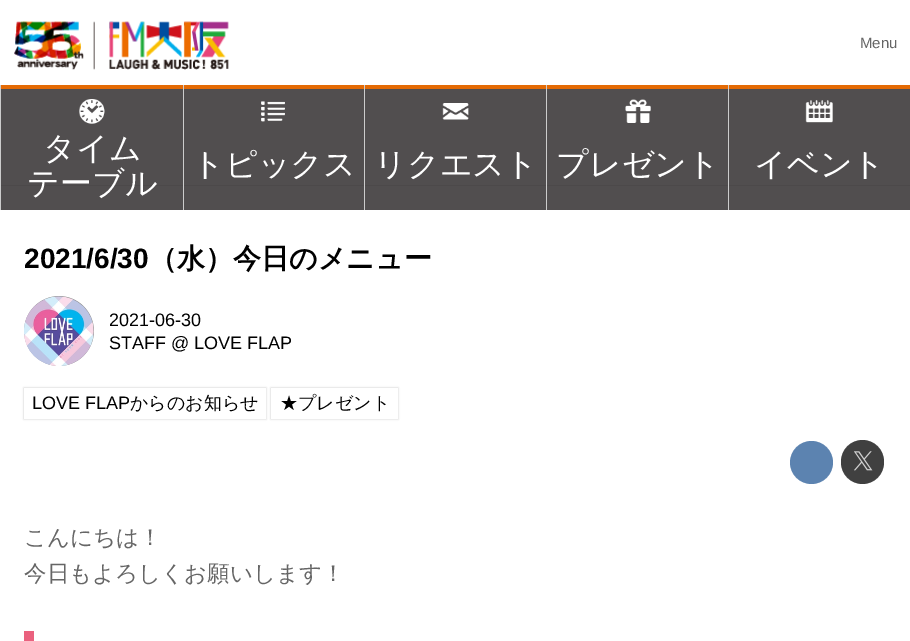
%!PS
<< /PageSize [910 641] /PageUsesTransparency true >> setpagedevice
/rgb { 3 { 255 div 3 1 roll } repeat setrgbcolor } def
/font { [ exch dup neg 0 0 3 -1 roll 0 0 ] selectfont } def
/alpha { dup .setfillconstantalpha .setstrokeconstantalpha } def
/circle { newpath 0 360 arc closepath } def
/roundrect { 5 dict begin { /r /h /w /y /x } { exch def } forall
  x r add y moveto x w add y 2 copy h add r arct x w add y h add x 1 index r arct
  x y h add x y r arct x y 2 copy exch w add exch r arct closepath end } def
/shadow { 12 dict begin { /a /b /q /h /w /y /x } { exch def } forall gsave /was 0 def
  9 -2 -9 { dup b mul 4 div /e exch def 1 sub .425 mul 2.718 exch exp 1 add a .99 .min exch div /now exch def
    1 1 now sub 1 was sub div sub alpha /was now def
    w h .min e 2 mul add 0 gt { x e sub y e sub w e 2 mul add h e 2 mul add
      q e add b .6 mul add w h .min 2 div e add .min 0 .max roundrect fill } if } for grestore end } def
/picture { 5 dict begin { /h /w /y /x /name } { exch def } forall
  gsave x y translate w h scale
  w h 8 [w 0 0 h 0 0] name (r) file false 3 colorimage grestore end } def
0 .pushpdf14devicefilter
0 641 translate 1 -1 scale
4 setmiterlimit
255 255 255 rgb
0 0 910 641 rectfill
81 78 79 rgb
1 89 909 121 rectfill
(img/1.rgb) 14 21 215 49 picture
(img/2.rgb) 79 99 26 25 picture
[
  [0 85 910 4 228 106 4]
  [0 185 910 1 76 73 74]
  [0 85 1 125 204 204 204]
] { aload pop rgb rectfill } forall
(img/3.rgb) 261 101 24 21 picture
183 85 1 125 rectfill
(img/4.rgb) 442 103 27 17 picture
364 85 1 125 rectfill
(img/5.rgb) 625 99 26 24 picture
546 85 1 125 rectfill
(img/6.rgb) 805 100 28 23 picture
728 85 1 125 rectfill
136 136 136 rgb
59 331 35 circle fill
(img/7.rgb) 24 296 70 70 picture
gsave
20 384 moveto 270 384 lineto 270 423 lineto 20 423 lineto closepath 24 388 moveto 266 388 lineto 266 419 lineto 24 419 lineto closepath eoclip newpath
0 0 0 rgb
24 388 242 31 0 1 0.25 shadow
grestore
0.5 alpha
255 255 255 rgb
24.5 388.5 241 30 rectstroke
gsave
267 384 moveto 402 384 lineto 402 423 lineto 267 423 lineto closepath 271 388 moveto 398 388 lineto 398 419 lineto 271 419 lineto closepath eoclip newpath
1 alpha
0 0 0 rgb
271 388 127 31 0 1 0.25 shadow
grestore
271.5 388.5 126 30 rectstroke
1 alpha
92 131 176 rgb
811.5 462.5 21.5 circle fill
64 64 64 rgb
841 440 43 44 21.5 roundrect fill
(img/8.rgb) 854 451 19 20 picture
234 97 126 rgb
24 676 moveto 24 631 lineto 34 631 lineto 34 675 lineto closepath fill
/LiberationSans-Regular 15 font
102 102 102 rgb
860 48 moveto (Menu) show
/WenQuanYiZenHei-Medium 32 font
255 255 255 rgb
[
  [(タイム) 43 159]
  [(テーブル) 27 194]
  [(トピックス) 192 175]
  [(リクエスト) 374 175]
  [(プレゼント) 556 175]
  [(イベント) 754 175]
] { aload pop moveto show } forall
/LiberationSans-Bold 28 font
0 0 0 rgb
24 268 moveto (2021/6/30) show
/WenQuanYiZenHei-Bold 28 font
149 268 moveto (（水）今日のメニュー) show
/LiberationSans-Regular 18 font
[
  [(2021-06-30) 109 326]
  [(STAFF @ LOVE FLAP) 109 349]
  [(LOVE FLAP) 32 409]
] { aload pop moveto show } forall
/WenQuanYiZenHei-Medium 18 font
130 409 moveto (からのお知らせ) show
280 409 moveto (★プレゼント) show
/WenQuanYiZenHei-Medium 22.5 font
102 102 102 rgb
24 545 moveto (こんにちは！) show
24 581 moveto (今日もよろしくお願いします！) show
.poppdf14devicefilter showpage
